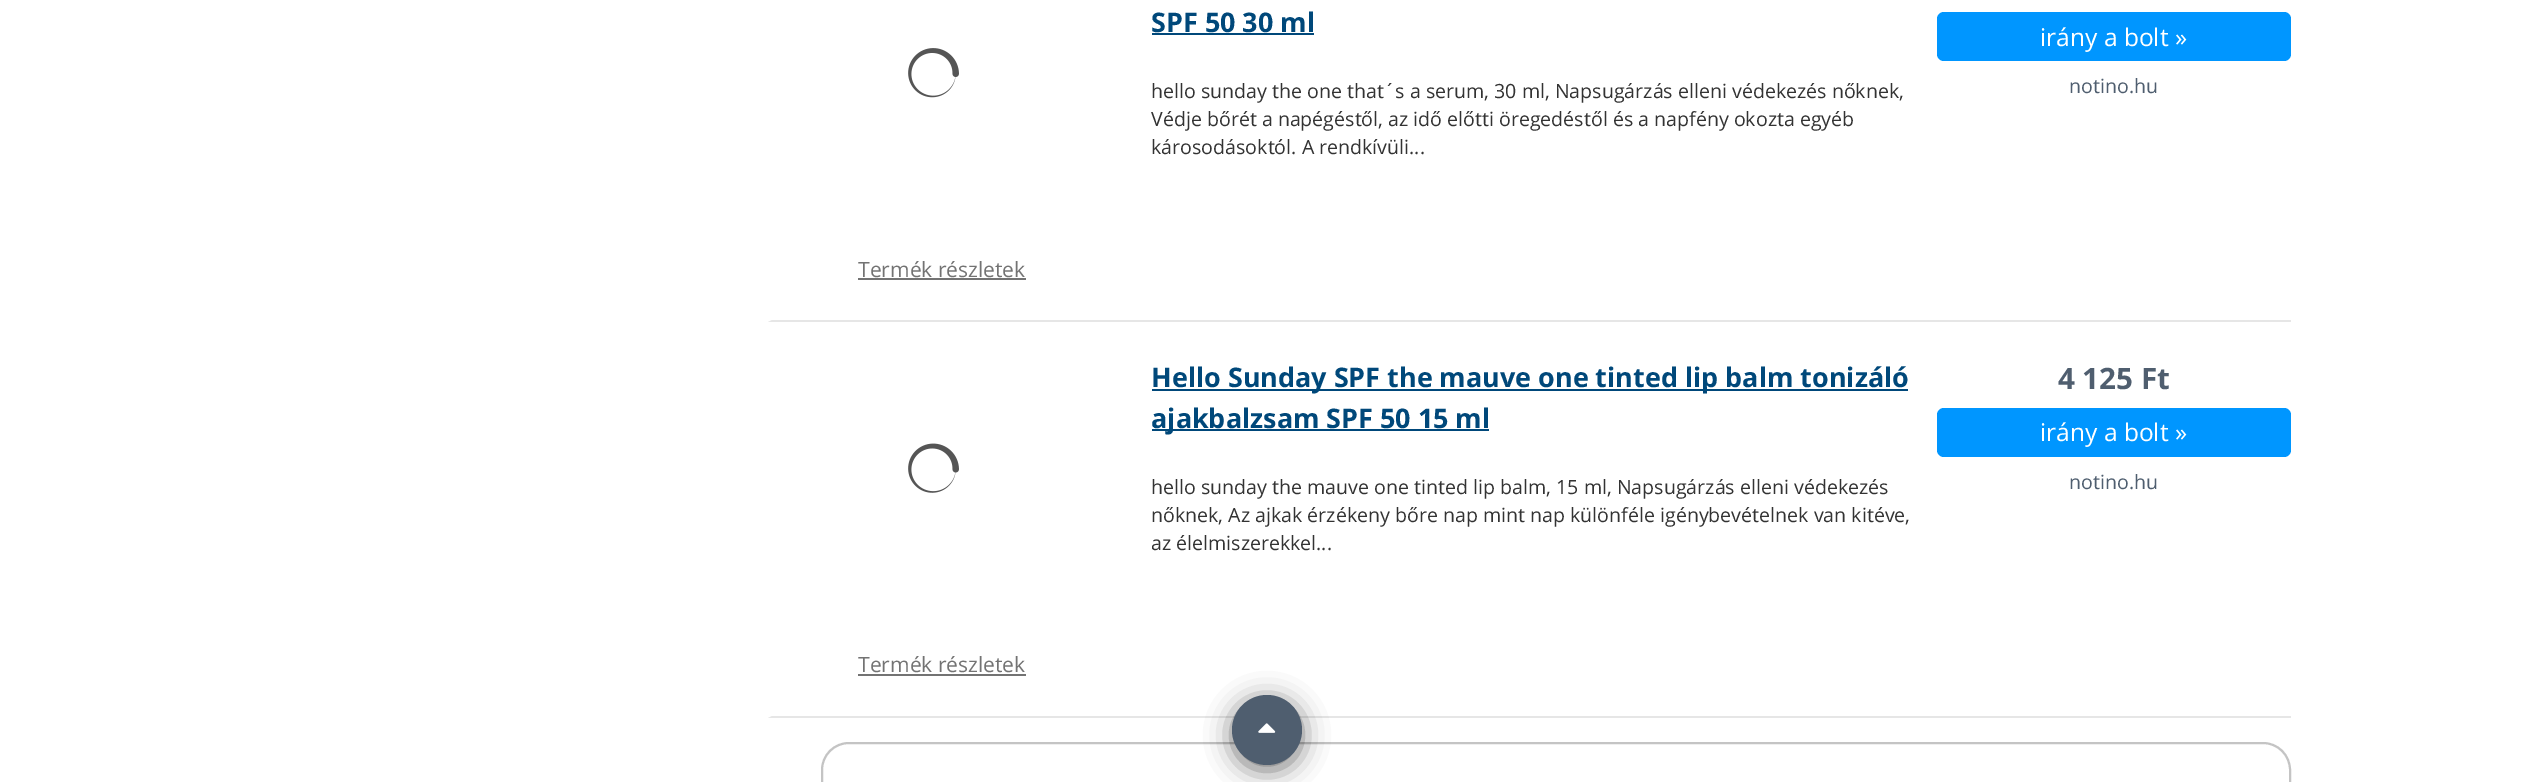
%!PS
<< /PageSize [2531 782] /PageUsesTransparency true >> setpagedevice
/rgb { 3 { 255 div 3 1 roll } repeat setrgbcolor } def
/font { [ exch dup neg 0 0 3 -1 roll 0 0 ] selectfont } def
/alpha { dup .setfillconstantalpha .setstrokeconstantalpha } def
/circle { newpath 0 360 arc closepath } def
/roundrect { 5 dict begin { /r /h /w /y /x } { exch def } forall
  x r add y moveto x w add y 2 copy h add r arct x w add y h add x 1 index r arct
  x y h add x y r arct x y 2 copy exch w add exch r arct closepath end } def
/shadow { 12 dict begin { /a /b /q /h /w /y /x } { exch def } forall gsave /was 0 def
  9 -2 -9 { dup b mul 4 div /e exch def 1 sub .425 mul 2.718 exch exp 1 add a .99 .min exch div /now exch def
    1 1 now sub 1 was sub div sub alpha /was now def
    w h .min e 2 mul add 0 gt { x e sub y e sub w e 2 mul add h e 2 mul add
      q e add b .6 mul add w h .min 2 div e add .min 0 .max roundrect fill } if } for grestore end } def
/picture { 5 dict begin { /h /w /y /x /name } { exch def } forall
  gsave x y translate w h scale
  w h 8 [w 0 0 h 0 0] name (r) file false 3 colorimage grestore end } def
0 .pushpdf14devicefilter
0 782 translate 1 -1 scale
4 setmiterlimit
255 255 255 rgb
0 0 2531 782 rectfill
230 230 230 rgb
2291 322 moveto 768 322 lineto 772 320 lineto 2291 320 lineto closepath fill
0 72 122 rgb
1152 33 162 2 rectfill
0 150 255 rgb
1937 12 354 49 7 roundrect fill
(img/1.rgb) 908 48 51 50 picture
115 115 115 rgb
858 278 168 2 rectfill
230 230 230 rgb
2291 718 moveto 768 718 lineto 772 716 lineto 2291 716 lineto closepath fill
0 72 122 rgb
1152 389 756 2 rectfill
1152 429 337 2 rectfill
0 150 255 rgb
1937 408 354 49 7 roundrect fill
(img/2.rgb) 908 443 51 50 picture
115 115 115 rgb
858 674 168 2 rectfill
196 196 196 rgb
2 setlinewidth
822 743 1468 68 27 roundrect stroke
0 0 0 rgb
1232 700 70 70 35 13 0.55 shadow
79 94 111 rgb
1267 730 35 circle fill
(img/3.rgb) 1258 723 18 10 picture
gsave
1152 0 759 42 rectclip
/OpenSans-Bold 26.95 font
0 72 122 rgb
1151 32 moveto (SPF 50 30 ml) show
grestore
/OpenSans-Regular 19.6 font
51 51 51 rgb
[
  [(hello sunday the one that´s a serum, 30 ml, Napsugárzás elleni védekezés nőknek,) 1151 98]
  [(Védje bőrét a napégéstől, az idő előtti öregedéstől és a napfény okozta egyéb) 1151 126]
  [(károsodásoktól. A rendkívüli...) 1151 154]
] { aload pop moveto show } forall
/OpenSans-Regular 24.5 font
255 255 255 rgb
2040 46 moveto (irány a bolt ») show
/OpenSans-Regular 19.6 font
79 94 111 rgb
2069 93 moveto (notino.hu) show
/OpenSans-Regular 21 font
115 115 115 rgb
858 277 moveto (Termék részletek) show
/OpenSans-Bold 26.95 font
0 72 122 rgb
1151 387 moveto (Hello Sunday SPF the mauve one tinted lip balm tonizáló) show
gsave
1152 357 759 81 rectclip
1151 428 moveto (ajakbalzsam SPF 50 15 ml) show
grestore
/OpenSans-Regular 19.6 font
51 51 51 rgb
[
  [(hello sunday the mauve one tinted lip balm, 15 ml, Napsugárzás elleni védekezés) 1151 494]
  [(nőknek, Az ajkak érzékeny bőre nap mint nap különféle igénybevételnek van kitéve,) 1151 522]
  [(az élelmiszerekkel...) 1151 550]
] { aload pop moveto show } forall
/OpenSans-Bold 29.5 font
79 94 111 rgb
2058 389 moveto (4 125 Ft) show
/OpenSans-Regular 24.5 font
255 255 255 rgb
2040 441 moveto (irány a bolt ») show
/OpenSans-Regular 19.6 font
79 94 111 rgb
2069 489 moveto (notino.hu) show
/OpenSans-Regular 21 font
115 115 115 rgb
858 672 moveto (Termék részletek) show
.poppdf14devicefilter showpage
